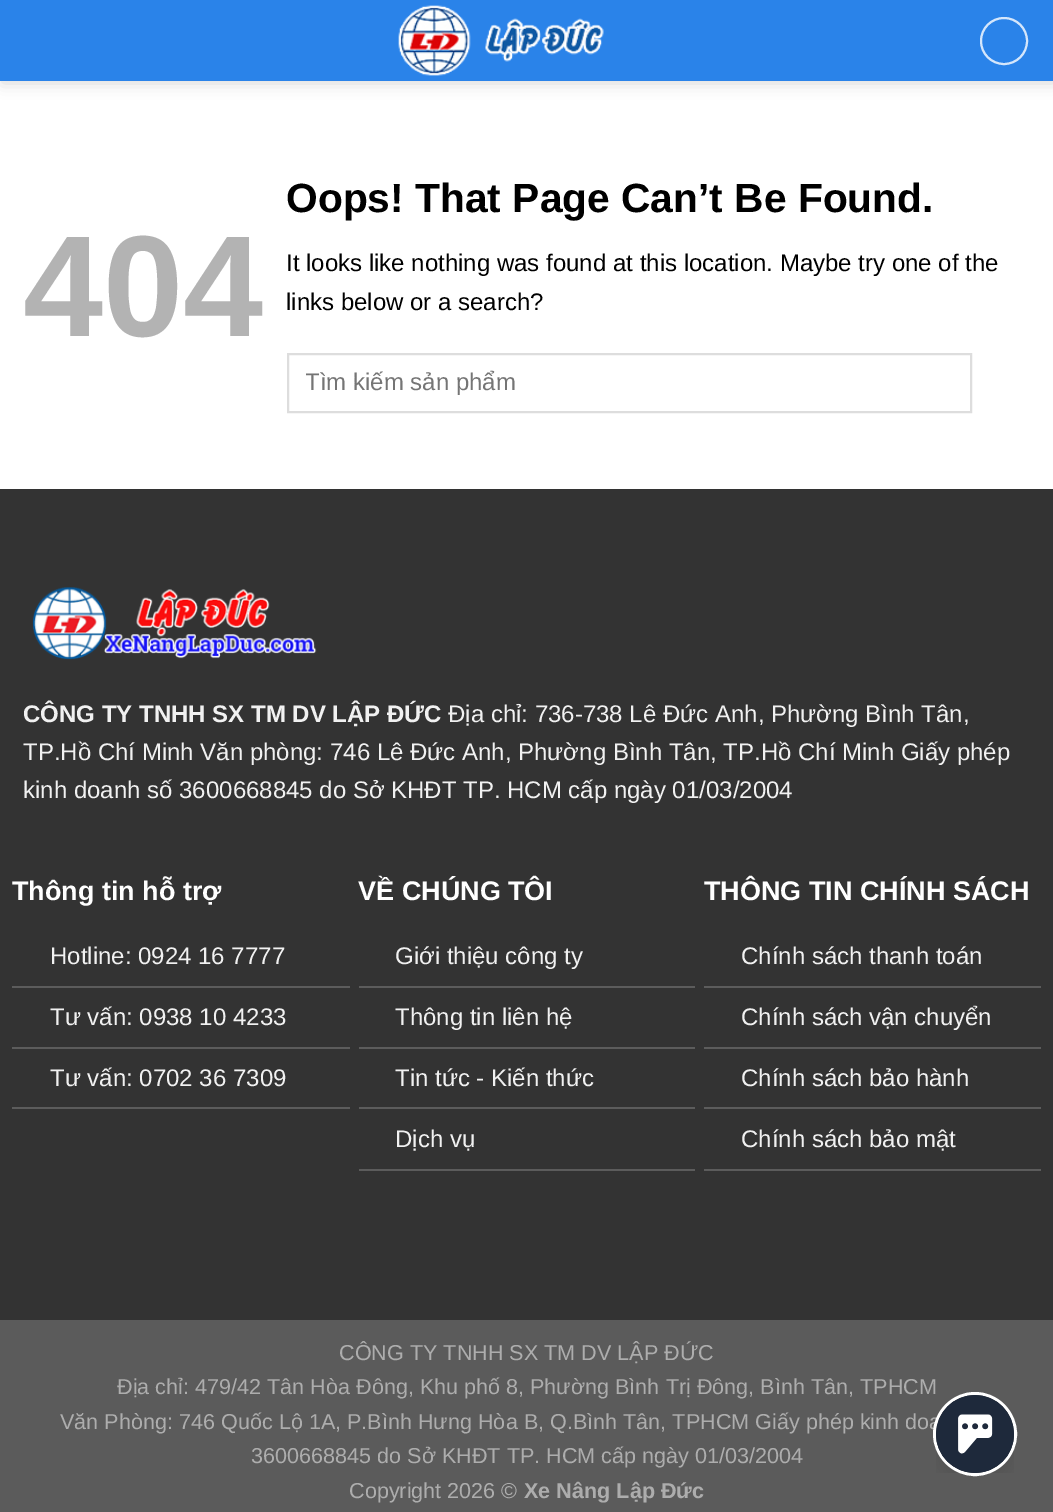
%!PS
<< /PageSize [1053 1512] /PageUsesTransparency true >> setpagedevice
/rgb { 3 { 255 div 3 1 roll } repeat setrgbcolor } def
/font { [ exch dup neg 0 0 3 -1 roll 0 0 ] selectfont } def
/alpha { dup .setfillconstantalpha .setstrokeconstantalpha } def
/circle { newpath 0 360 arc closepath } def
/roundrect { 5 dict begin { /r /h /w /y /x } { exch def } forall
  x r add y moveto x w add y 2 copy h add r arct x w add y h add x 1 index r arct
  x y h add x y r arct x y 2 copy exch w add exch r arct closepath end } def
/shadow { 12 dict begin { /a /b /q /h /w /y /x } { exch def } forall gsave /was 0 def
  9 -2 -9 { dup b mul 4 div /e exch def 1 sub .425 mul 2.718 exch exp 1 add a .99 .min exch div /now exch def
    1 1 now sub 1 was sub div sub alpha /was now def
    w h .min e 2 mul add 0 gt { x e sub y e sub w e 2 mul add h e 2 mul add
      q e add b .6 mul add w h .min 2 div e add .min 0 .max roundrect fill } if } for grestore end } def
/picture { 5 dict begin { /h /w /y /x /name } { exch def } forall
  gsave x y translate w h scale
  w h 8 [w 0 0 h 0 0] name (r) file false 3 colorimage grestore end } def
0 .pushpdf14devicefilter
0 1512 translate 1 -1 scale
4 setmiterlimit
255 255 255 rgb
0 0 1053 1512 rectfill
0 0 0 rgb
2 2 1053 81 0 7.5 0.15 shadow
42 131 233 rgb
0 0 1053 81 rectfill
(img/1.rgb) 398 5 206 71 picture
212 230 251 rgb
2 setlinewidth
1004 41 23 circle stroke
221 221 221 rgb
288 354 683 58 rectstroke
51 51 51 rgb
0 489 1053 831 rectfill
(img/2.rgb) 32 587 285 73 picture
[
  [12 986 338 2 92 92 92]
  [12 1047 338 2 92 92 92]
  [12 1107 338 2 92 92 92]
  [359 986 336 2 92 92 92]
  [359 1047 336 2 92 92 92]
  [359 1107 336 2 92 92 92]
  [359 1169 336 2 92 92 92]
  [704 986 337 2 92 92 92]
  [704 1047 337 2 92 92 92]
  [704 1107 337 2 92 92 92]
  [704 1169 337 2 92 92 92]
  [0 1320 1053 192 91 91 91]
] { aload pop rgb rectfill } forall
/LiberationSans-Bold 144 font
179 179 179 rgb
23 336 moveto (404) show
/LiberationSans-Bold 40.75 font
0 0 0 rgb
286 212 moveto (Oops! That Page Can’t Be Found.) show
/LiberationSans-Regular 24 font
286 271 moveto (It looks like nothing was found at this location. Maybe try one of the) show
286 310 moveto (links below or a search?) show
gsave
306 369 641 27 rectclip
117 117 117 rgb
305 390 moveto (Tìm kiếm sản phẩm) show
grestore
/LiberationSans-Bold 24 font
241 241 241 rgb
23 722 moveto (CÔNG TY TNHH SX TM DV LẬP ĐỨC) show
/LiberationSans-Regular 24 font
[
  [(Địa chỉ: 736-738 Lê Đức Anh, Phường Bình Tân,) 448 722]
  [(TP.Hồ Chí Minh Văn phòng: 746 Lê Đức Anh, Phường Bình Tân, TP.Hồ Chí Minh Giấy phép) 23 760]
  [(kinh doanh số 3600668845 do Sở KHĐT TP. HCM cấp ngày 01/03/2004) 23 798]
] { aload pop moveto show } forall
/LiberationSans-Bold 27 font
255 255 255 rgb
12 900 moveto (Thông tin hỗ trợ) show
/LiberationSans-Regular 24 font
241 241 241 rgb
[
  [(Hotline: 0924 16 7777) 50 964]
  [(Tư vấn: 0938 10 4233) 50 1025]
  [(Tư vấn: 0702 36 7309) 50 1086]
] { aload pop moveto show } forall
/LiberationSans-Bold 27 font
255 255 255 rgb
358 900 moveto (VỀ CHÚNG TÔI) show
/LiberationSans-Regular 24 font
241 241 241 rgb
[
  [(Giới thiệu công ty) 395 964]
  [(Thông tin liên hệ) 395 1025]
  [(Tin tức - Kiến thức) 395 1086]
  [(Dịch vụ) 395 1147]
] { aload pop moveto show } forall
/LiberationSans-Bold 27 font
255 255 255 rgb
704 900 moveto (THÔNG TIN CHÍNH SÁCH) show
/LiberationSans-Regular 24 font
241 241 241 rgb
[
  [(Chính sách thanh toán) 741 964]
  [(Chính sách vận chuyển) 741 1025]
  [(Chính sách bảo hành) 741 1086]
  [(Chính sách bảo mật) 741 1147]
] { aload pop moveto show } forall
/LiberationSans-Regular 21.6 font
173 173 173 rgb
[
  [(CÔNG TY TNHH SX TM DV LẬP ĐỨC) 339 1360]
  [(Địa chỉ: 479/42 Tân Hòa Đông, Khu phố 8, Phường Bình Trị Đông, Bình Tân, TPHCM) 117 1394]
  [(Văn Phòng: 746 Quốc Lộ 1A, P.Bình Hưng Hòa B, Q.Bình Tân, TPHCM Giấy phép kinh doa) 60 1429]
  [(3600668845 do Sở KHĐT TP. HCM cấp ngày 01/03/2004) 251 1463]
  [(Copyright 2026 ©) 349 1498]
] { aload pop moveto show } forall
/LiberationSans-Bold 21.6 font
524 1498 moveto (Xe Nâng Lập Đức) show
255 255 255 rgb
3 setlinewidth
975 1434 40.5 circle stroke
(img/3.rgb) 936 1395 78 78 picture
.poppdf14devicefilter showpage
